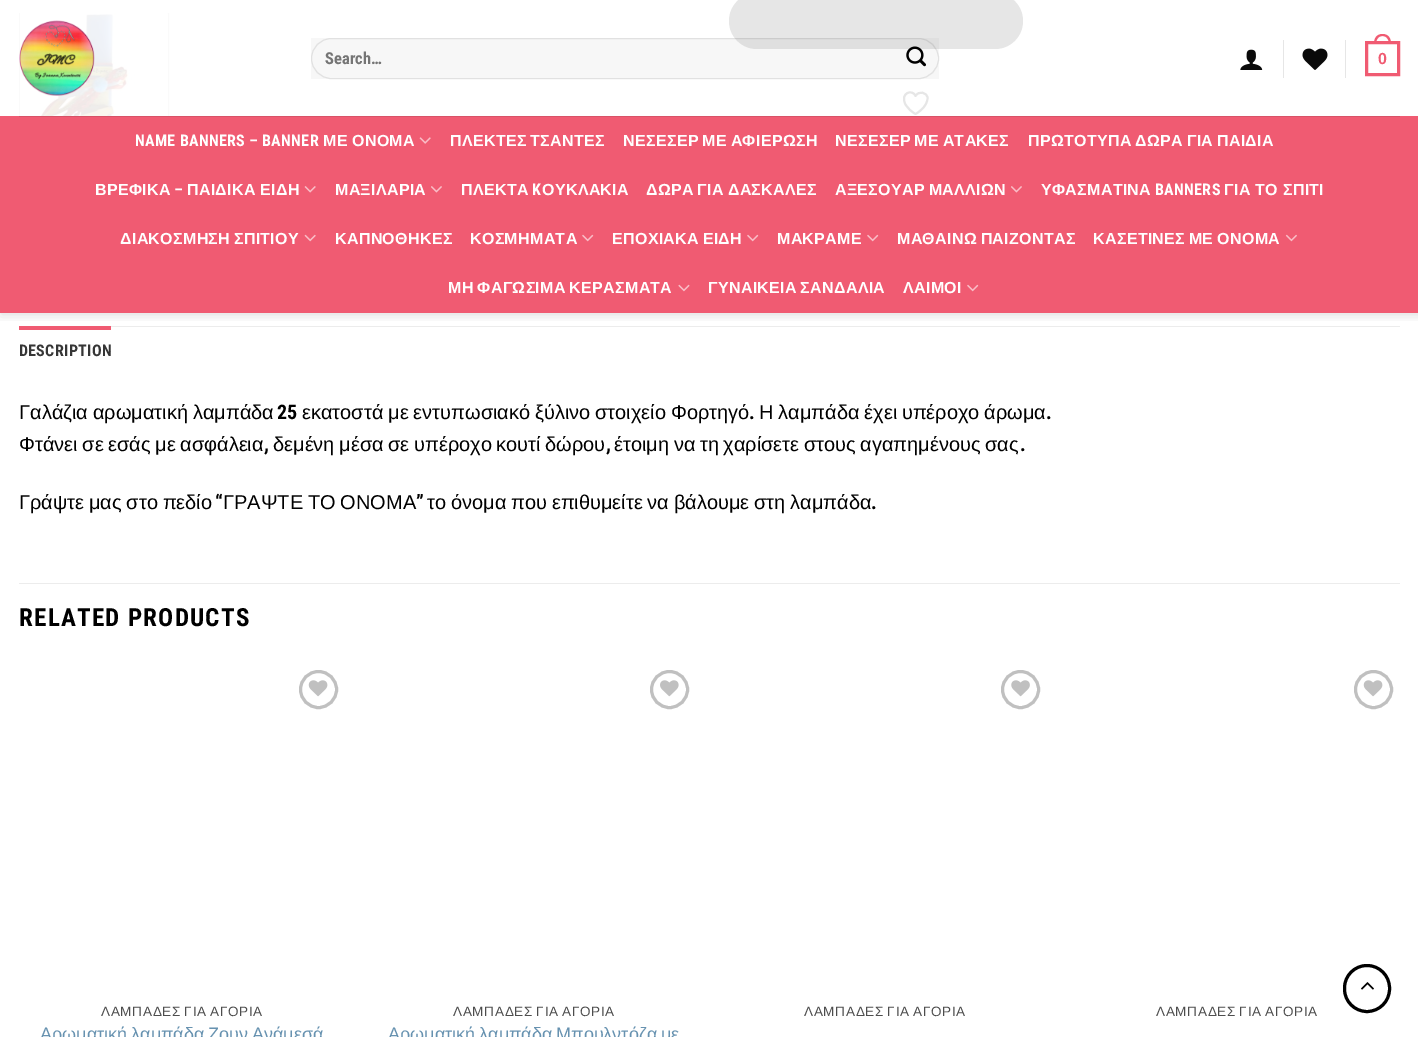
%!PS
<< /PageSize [1418 1037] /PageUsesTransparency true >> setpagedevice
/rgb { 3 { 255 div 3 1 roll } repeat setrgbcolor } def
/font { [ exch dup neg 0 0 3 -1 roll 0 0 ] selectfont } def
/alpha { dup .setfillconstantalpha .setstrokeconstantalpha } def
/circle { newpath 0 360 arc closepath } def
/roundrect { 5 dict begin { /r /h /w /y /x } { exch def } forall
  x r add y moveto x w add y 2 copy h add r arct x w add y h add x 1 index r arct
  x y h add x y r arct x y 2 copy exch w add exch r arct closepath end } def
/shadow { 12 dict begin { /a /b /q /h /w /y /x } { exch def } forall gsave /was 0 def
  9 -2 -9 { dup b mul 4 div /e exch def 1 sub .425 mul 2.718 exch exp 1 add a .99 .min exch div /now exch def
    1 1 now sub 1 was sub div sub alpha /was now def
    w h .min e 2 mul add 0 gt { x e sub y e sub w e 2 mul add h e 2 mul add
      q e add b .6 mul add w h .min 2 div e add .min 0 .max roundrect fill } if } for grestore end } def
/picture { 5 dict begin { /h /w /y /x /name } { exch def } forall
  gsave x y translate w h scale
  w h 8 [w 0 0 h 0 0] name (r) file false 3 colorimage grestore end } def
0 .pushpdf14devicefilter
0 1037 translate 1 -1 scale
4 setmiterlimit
255 255 255 rgb
0 0 1418 1037 rectfill
204 204 204 rgb
19.5 13.5 149 171 rectstroke
(img/12.rgb) 20 13 148 103 picture
0 0 0 rgb
729 -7 294 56 28 roundrect fill
2 setlinewidth
1 setlinecap
1 setlinejoin
927.5 98 moveto 927.5 92 918 90.5 915.5 96 curveto 912.5 88.5 899.5 93 905.5 104.5 curveto 908 108.5 911.5 112 915.5 114 curveto 915.5 114 927.5 107.5 927.5 98 curveto closepath stroke
236 236 236 rgb
111 326 1289 1 rectfill
240 91 114 rgb
19 326 92 4 rectfill
gsave
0 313 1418 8 rectclip
0 0 0 rgb
1 1 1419 313 0 6 0.15 shadow
grestore
0.9 alpha
255 255 255 rgb
19 0 1004 116 rectfill
1 alpha
(img/1.rgb) 19 20 76 76 picture
0.03 alpha
0 0 0 rgb
311 38 628 41 rectfill
0.09 alpha
1 setlinewidth
0 setlinecap
0 setlinejoin
311.5 38.5 627 40 20 roundrect stroke
1 alpha
(img/2.rgb) 906 46 20 21 picture
(img/3.rgb) 1240 49 23 21 picture
230 230 230 rgb
1283 40 1 38 rectfill
(img/4.rgb) 1302 48 26 22 picture
1345 40 1 38 rectfill
240 91 114 rgb
3 setlinewidth
1366.5 42.5 32 32 rectstroke
1382.5 34 moveto 1388.5 34 1391 38.5 1391 44 curveto 1374 44 lineto 1374 38.5 1376.5 34 1382.5 34 curveto closepath 1382.5 36 moveto 1387 36 1389 40 1389 44 curveto 1376 44 lineto 1376 40 1378 36 1382.5 36 curveto closepath eofill
0 116 1418 197 rectfill
216 82 103 rgb
19 116 1381 1 rectfill
(img/5.rgb) 419 137 12 7 picture
(img/6.rgb) 304 186 12 7 picture
(img/7.rgb) 431 186 11 7 picture
(img/7.rgb) 1011 186 11 7 picture
(img/8.rgb) 304 234 12 8 picture
(img/9.rgb) 582 234 12 8 picture
(img/9.rgb) 747 234 12 8 picture
(img/9.rgb) 867 234 12 8 picture
(img/10.rgb) 1285 234 12 8 picture
(img/11.rgb) 678 284 12 8 picture
(img/9.rgb) 967 284 12 8 picture
236 236 236 rgb
19 583 1381 1 rectfill
192 192 192 rgb
318.5 689.5 18 circle stroke
(img/13.rgb) 308 680 20 17 picture
669.5 689.5 18 circle stroke
(img/14.rgb) 660 680 19 17 picture
1020.5 689.5 18 circle stroke
(img/15.rgb) 1011 680 19 17 picture
1373.5 689.5 18 circle stroke
(img/13.rgb) 1363 680 20 17 picture
0 0 0 rgb
1344.5 965.5 45 46 22.5 roundrect stroke
(img/16.rgb) 1361 982 13 8 picture
/RobotoCondensed-Bold 16.5 font
117 117 117 rgb
325 64 moveto (Search…) show
/LiberationSans-Bold 16 font
240 91 114 rgb
1378 64 moveto 0.3 0 (0) ashow
/RobotoCondensed-Bold 16 font
255 255 255 rgb
135 146 moveto 0.3 0 (NAME BANNERS – BANNER) ashow
/LiberationSans-Bold 16 font
323 146 moveto 0.3 0 (ΜΕ) ashow
352 146 moveto 0.3 0 (ΟΝΟΜΑ) ashow
450 146 moveto -1 0 32 0.3 0 (ΠΛΕΚΤΕΣ ΤΣΑΝΤΕΣ) awidthshow
623 146 moveto -1 0 32 0.3 0 (ΝΕΣΕΣΕΡ ΜΕ ΑΦΙΕΡΩΣΗ) awidthshow
835 146 moveto -1 0 32 0.3 0 (ΝΕΣΕΣΕΡ ΜΕ ΑΤΑΚΕΣ) awidthshow
1028 146 moveto -1 0 32 0.3 0 (ΠΡΩΤΟΤΥΠΑ ΔΩΡΑ ΓΙΑ ΠΑΙΔΙΑ) awidthshow
95 195 moveto 0.3 0 (ΒΡΕΦΙΚΑ) ashow
/RobotoCondensed-Bold 16 font
174 195 moveto 0.3 0 (–) ashow
/LiberationSans-Bold 16 font
187 195 moveto 0.3 0 (ΠΑΙΔΙΚΑ ΕΙΔΗ) ashow
335 195 moveto 0.3 0 (ΜΑΞΙΛΑΡΙΑ) ashow
461 195 moveto 0.3 0 (ΠΛΕΚΤΑ) ashow
/RobotoCondensed-Bold 16 font
532 195 moveto 0.3 0 (K) ashow
/LiberationSans-Bold 16 font
542 195 moveto 0.3 0 (ΟΥΚΛΑΚΙΑ) ashow
646 195 moveto -1 0 32 0.3 0 (ΔΩΡΑ ΓΙΑ ΔΑΣΚΑΛΕΣ) awidthshow
835 195 moveto -1 0 32 0.3 0 (ΑΞΕΣΟΥΑΡ ΜΑΛΛΙΩΝ) awidthshow
1041 195 moveto 0.3 0 (ΥΦΑΣΜΑΤΙΝΑ) ashow
/RobotoCondensed-Bold 16 font
1155 195 moveto 0.3 0 (BANNERS) ashow
/LiberationSans-Bold 16 font
1224 195 moveto 0.3 0 (ΓΙΑ ΤΟ ΣΠΙΤΙ) ashow
120 244 moveto -1 0 32 0.3 0 (ΔΙΑΚΟΣΜΗΣΗ ΣΠΙΤΙΟΥ) awidthshow
335 244 moveto 0.3 0 (ΚΑΠΝΟΘΗΚΕΣ) ashow
470 244 moveto 0.3 0 (ΚΟΣΜΗΜΑΤΑ) ashow
612 244 moveto -1 0 32 0.3 0 (ΕΠΟΧΙΑΚΑ ΕΙΔΗ) awidthshow
777 244 moveto 0.3 0 (ΜΑΚΡΑΜΕ) ashow
897 244 moveto -1 0 32 0.3 0 (ΜΑΘΑΙΝΩ ΠΑΙΖΟΝΤΑΣ) awidthshow
1093 244 moveto -1 0 32 0.3 0 (ΚΑΣΕΤΙΝΕΣ ΜΕ ΟΝΟΜΑ) awidthshow
448 293 moveto -1 0 32 0.3 0 (ΜΗ ΦΑΓΩΣΙΜΑ ΚΕΡΑΣΜΑΤΑ) awidthshow
708 293 moveto -1 0 32 0.3 0 (ΓΥΝΑΙΚΕΙΑ ΣΑΝΔΑΛΙΑ) awidthshow
903 293 moveto 0.3 0 (ΛΑΙΜΟΙ) ashow
/RobotoCondensed-Bold 16 font
54 54 54 rgb
19 356 moveto 0.3 0 (DESCRIPTION) ashow
/LiberationSans-Regular 20 font
0 0 0 rgb
19 419 moveto -0.75 0 32 (Γαλάζια αρωματική λαμπάδα) widthshow
/RobotoCondensed-Bold 20 font
277 419 moveto (25) show
/LiberationSans-Regular 20 font
302 419 moveto -0.75 0 32 (εκατοστά με εντυπωσιακό ξύλινο στοιχείο Φορτηγό) widthshow
/RobotoCondensed-Bold 20 font
749 419 moveto (.) show
/LiberationSans-Regular 20 font
759 419 moveto -0.75 0 32 (Η λαμπάδα έχει υπέροχο άρωμα) widthshow
/RobotoCondensed-Bold 20 font
1046 419 moveto (.) show
/LiberationSans-Regular 20 font
19 451 moveto -1 0 32 (Φτάνει σε εσάς με ασφάλεια) widthshow
/RobotoCondensed-Bold 20 font
264 451 moveto (,) show
/LiberationSans-Regular 20 font
273 451 moveto -1 0 32 (δεμένη μέσα σε υπέροχο κουτί δώρου) widthshow
/RobotoCondensed-Bold 20 font
606 451 moveto (,) show
/LiberationSans-Regular 20 font
614 451 moveto -1 0 32 (έτοιμη να τη χαρίσετε στους αγαπημένους σας) widthshow
/RobotoCondensed-Bold 20 font
1020 451 moveto (.) show
/LiberationSans-Regular 20 font
19 509 moveto -0.75 0 32 (Γράψτε μας στο πεδίο) widthshow
/RobotoCondensed-Bold 20 font
215 509 moveto (“) show
/LiberationSans-Regular 20 font
223 509 moveto -0.75 0 32 (ΓΡΑΨΤΕ ΤΟ ΟΝΟΜΑ) widthshow
/RobotoCondensed-Bold 20 font
416 509 moveto (”) show
/LiberationSans-Regular 20 font
427 509 moveto -0.75 0 32 (το όνομα που επιθυμείτε να βάλουμε στη λαμπάδα) widthshow
/RobotoCondensed-Bold 20 font
871 509 moveto (.) show
/RobotoCondensed-Bold 25 font
19 626 moveto 1.25 0 (RELATED PRODUCTS) ashow
/LiberationSans-Regular 13.5 font
77 77 77 rgb
101 1016 moveto -1 0 32 0.7 0 (ΛΑΜΠΑΔΕΣ ΓΙΑ ΑΓΟΡΙΑ) awidthshow
/LiberationSans-Regular 18 font
103 146 176 rgb
40 1040 moveto -1 0 32 (Αρωματική λαμπάδα Ζουν Ανάμεσά) widthshow
/LiberationSans-Regular 13.5 font
77 77 77 rgb
453 1016 moveto -1 0 32 0.7 0 (ΛΑΜΠΑΔΕΣ ΓΙΑ ΑΓΟΡΙΑ) awidthshow
/LiberationSans-Regular 18 font
103 146 176 rgb
388 1040 moveto -1 0 32 (Αρωματική λαμπάδα Μπουλντόζα με) widthshow
/LiberationSans-Regular 13.5 font
77 77 77 rgb
804 1016 moveto -1 0 32 0.7 0 (ΛΑΜΠΑΔΕΣ ΓΙΑ ΑΓΟΡΙΑ) awidthshow
1156 1016 moveto -1 0 32 0.7 0 (ΛΑΜΠΑΔΕΣ ΓΙΑ ΑΓΟΡΙΑ) awidthshow
.poppdf14devicefilter showpage
